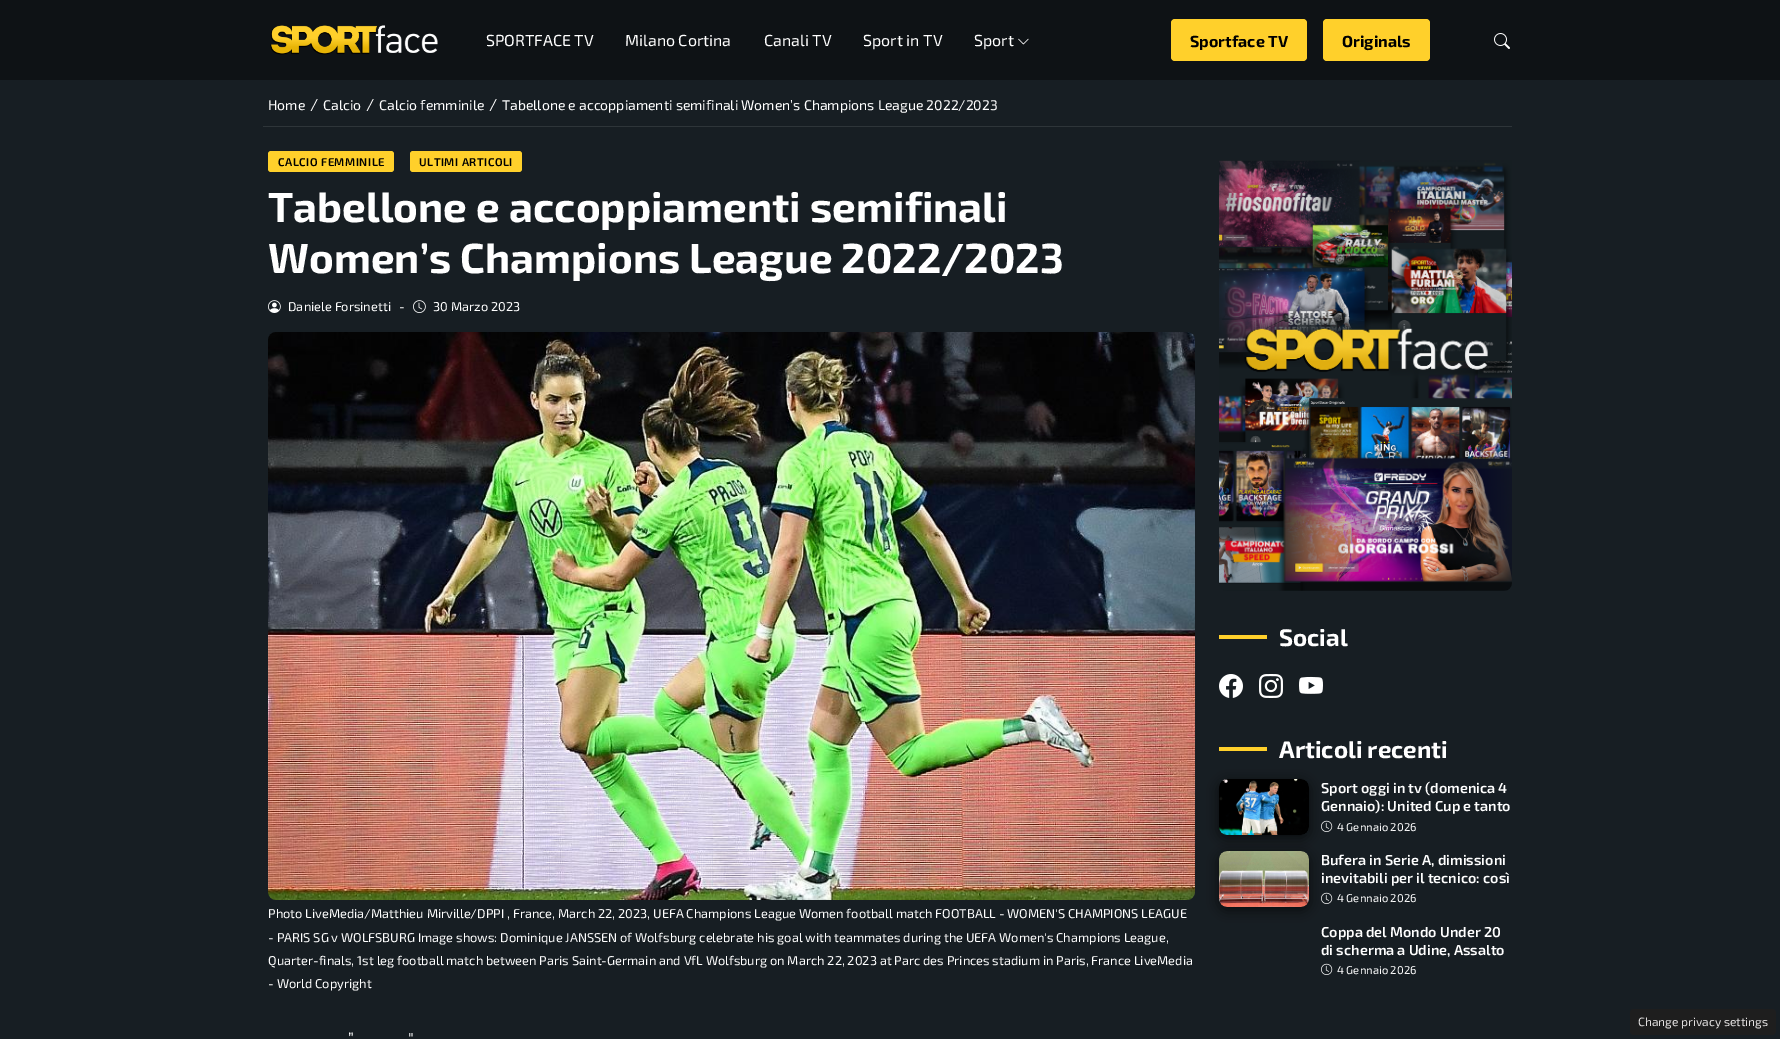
%!PS
<< /PageSize [1780 1039] /PageUsesTransparency true >> setpagedevice
/rgb { 3 { 255 div 3 1 roll } repeat setrgbcolor } def
/font { [ exch dup neg 0 0 3 -1 roll 0 0 ] selectfont } def
/alpha { dup .setfillconstantalpha .setstrokeconstantalpha } def
/roundrect { 5 dict begin { /r /h /w /y /x } { exch def } forall
  x r add y moveto x w add y 2 copy h add r arct x w add y h add x 1 index r arct
  x y h add x y r arct x y 2 copy exch w add exch r arct closepath end } def
/shadow { 12 dict begin { /a /b /q /h /w /y /x } { exch def } forall gsave /was 0 def
  9 -2 -9 { dup b mul 4 div /e exch def 1 sub .425 mul 2.718 exch exp 1 add a .99 .min exch div /now exch def
    1 1 now sub 1 was sub div sub alpha /was now def
    w h .min e 2 mul add 0 gt { x e sub y e sub w e 2 mul add h e 2 mul add
      q e add b .6 mul add w h .min 2 div e add .min 0 .max roundrect fill } if } for grestore end } def
/picture { 5 dict begin { /h /w /y /x /name } { exch def } forall
  gsave x y translate w h scale
  w h 8 [w 0 0 h 0 0] name (r) file false 3 colorimage grestore end } def
0 .pushpdf14devicefilter
0 1039 translate 1 -1 scale
4 setmiterlimit
23 30 35 rgb
0 0 1780 1039 rectfill
14 18 21 rgb
0 0 1780 80 rectfill
(img/1.rgb) 270 25 168 30 picture
(img/2.rgb) 1018 38 11 7 picture
255 208 43 rgb
1171 19 136 42 4 roundrect fill
1323 19 107 42 4 roundrect fill
(img/3.rgb) 1494 33 16 16 picture
46 53 57 rgb
263 126 1249 1 rectfill
255 208 43 rgb
268 151 126 21 3 roundrect fill
410 151 112 21 3 roundrect fill
(img/4.rgb) 268 300 13 13 picture
(img/5.rgb) 413 300 13 13 picture
(img/6.rgb) 268 332 927 568 picture
(img/7.rgb) 1219 160 293 431 picture
1219 635 48 4 rectfill
(img/8.rgb) 1219 674 24 24 picture
(img/9.rgb) 1259 674 24 24 picture
(img/10.rgb) 1299 676 24 18 picture
1219 747 48 4 rectfill
(img/12.rgb) 1321 820 12 12 picture
0 0 0 rgb
1219 782 90 56 8 6 0.6 shadow
(img/11.rgb) 1219 779 90 56 picture
(img/12.rgb) 1321 892 12 12 picture
1219 854 90 56 8 6 0.6 shadow
(img/13.rgb) 1219 851 90 56 picture
(img/12.rgb) 1321 963 12 12 picture
30 30 30 rgb
1630 1009 146 26 4 roundrect fill
/Exo2-Regular 16 font
255 255 255 rgb
[
  [(SPORTFACE TV) 486 46]
  [(Milano Cortina) 625 46]
  [(Canali TV) 764 46]
  [(Sport in TV) 863 46]
  [(Sport) 974 46]
] { aload pop moveto show } forall
/Exo2-Bold 16 font
0 0 0 rgb
1190 47 moveto (Sportface TV) show
1342 47 moveto (Originals) show
/Exo2-Regular 14 font
255 255 255 rgb
268 110 moveto (Home) show
/Exo2-Regular 16 font
310 110 moveto (/) show
/Exo2-Regular 14 font
323 110 moveto (Calcio) show
/Exo2-Regular 16 font
366 110 moveto (/) show
/Exo2-Regular 14 font
379 110 moveto (Calcio femminile) show
/Exo2-Regular 16 font
489 110 moveto (/) show
/Exo2-Regular 14 font
502 110 moveto (Tabellone e accoppiamenti semifinali Women’s Champions League 2022/2023) show
/Exo2-SemiBold 11.25 font
0 0 0 rgb
278 166 moveto 0.5 0 (CALCIO FEMMINILE) ashow
419 166 moveto 0.5 0 (ULTIMI ARTICOLI) ashow
/Exo2-Bold 42 font
255 255 255 rgb
268 222 moveto (Tabellone e accoppiamenti semifinali) show
268 273 moveto (Women’s Champions League 2022/2023) show
/Exo2-Regular 12.8 font
[
  [(Daniele Forsinetti) 288 311]
  [(-) 399 311]
  [(30 Marzo 2023) 433 311]
  [(Photo LiveMedia/Matthieu Mirville/DPPI , France, March 22, 2023, UEFA Champions League Women football match FOOTBALL - WOMEN'S CHAMPIONS LEAGUE) 268 918]
  [(- PARIS SG v WOLFSBURG Image shows: Dominique JANSSEN of Wolfsburg celebrate his goal with teammates during the UEFA Women's Champions League,) 268 942]
  [(Quarter-finals, 1st leg football match between Paris Saint-Germain and VfL Wolfsburg on March 22, 2023 at Parc des Princes stadium in Paris, France LiveMedia) 268 965]
  [(- World Copyright) 268 988]
] { aload pop moveto show } forall
/Exo2-Regular 16 font
348 1044 moveto (”) show
408 1044 moveto (″) show
/Exo2-Bold 24 font
1279 646 moveto (Social) show
1279 758 moveto (Articoli recenti) show
/Exo2-SemiBold 14.4 font
1321 793 moveto (Sport oggi in tv \(domenica 4) show
1321 811 moveto (Gennaio\): United Cup e tanto) show
/Exo2-Regular 11.25 font
1337 831 moveto (4 Gennaio 2026) show
/Exo2-SemiBold 14.4 font
1321 865 moveto (Bufera in Serie A, dimissioni) show
1321 883 moveto (inevitabili per il tecnico: così) show
/Exo2-Regular 11.25 font
1337 902 moveto (4 Gennaio 2026) show
/Exo2-SemiBold 14.4 font
1321 937 moveto (Coppa del Mondo Under 20) show
1321 955 moveto (di scherma a Udine, Assalto) show
/Exo2-Regular 11.25 font
1337 974 moveto (4 Gennaio 2026) show
/Exo2-Regular 12 font
227 225 225 rgb
1638 1026 moveto (Change privacy settings) show
.poppdf14devicefilter showpage
